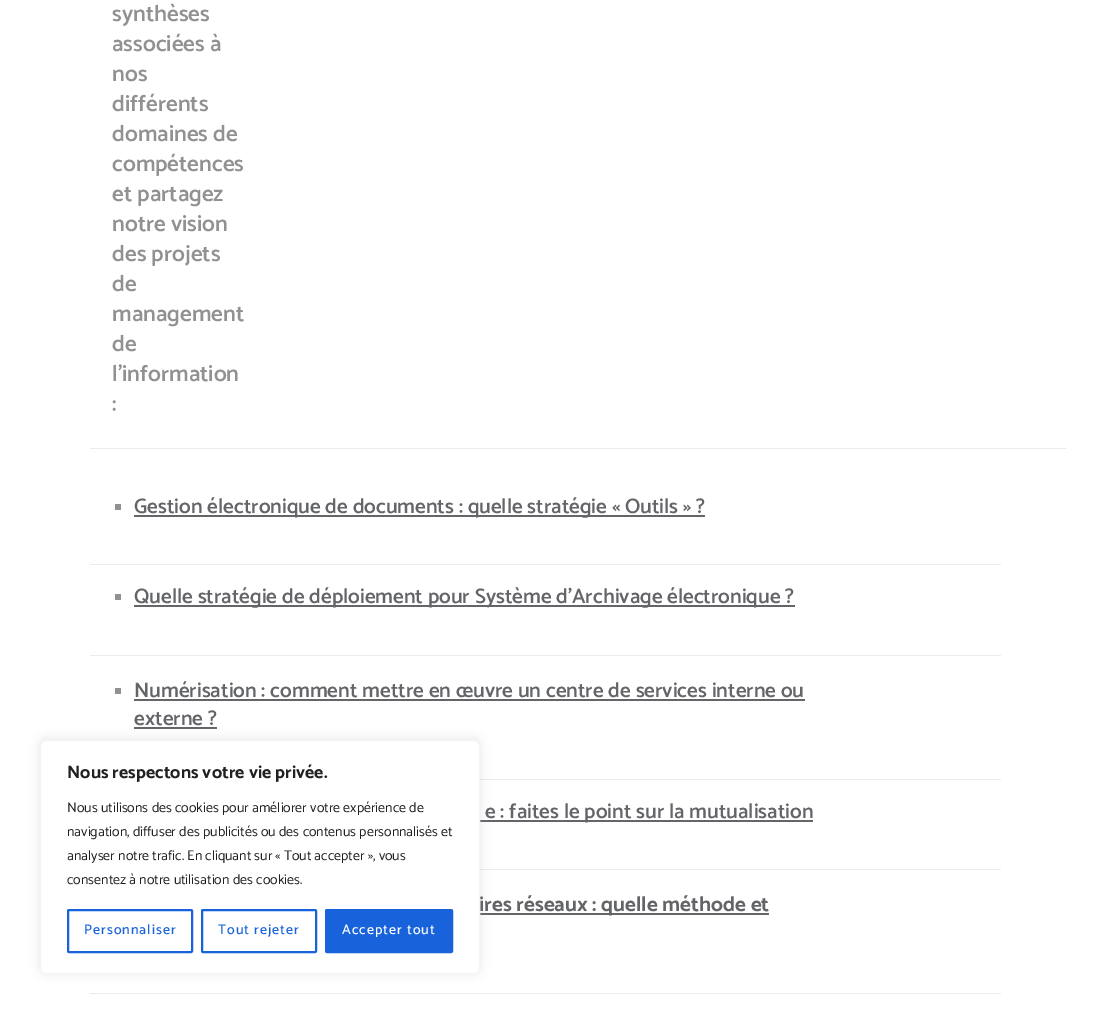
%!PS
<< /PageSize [1120 1014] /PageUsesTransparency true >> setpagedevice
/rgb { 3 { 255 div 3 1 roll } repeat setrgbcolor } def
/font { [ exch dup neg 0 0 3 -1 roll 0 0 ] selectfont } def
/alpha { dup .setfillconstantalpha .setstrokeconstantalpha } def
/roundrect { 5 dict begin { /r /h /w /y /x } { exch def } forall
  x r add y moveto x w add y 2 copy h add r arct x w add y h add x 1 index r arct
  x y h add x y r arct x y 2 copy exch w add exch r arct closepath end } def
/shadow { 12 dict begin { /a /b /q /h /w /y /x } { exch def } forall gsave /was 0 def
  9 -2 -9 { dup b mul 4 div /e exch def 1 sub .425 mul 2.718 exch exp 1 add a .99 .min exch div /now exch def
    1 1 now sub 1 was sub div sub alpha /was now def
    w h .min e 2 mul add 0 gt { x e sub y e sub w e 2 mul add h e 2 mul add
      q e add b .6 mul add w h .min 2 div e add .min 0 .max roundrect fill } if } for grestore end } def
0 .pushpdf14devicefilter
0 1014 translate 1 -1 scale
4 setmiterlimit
255 255 255 rgb
0 0 1120 1014 rectfill
[
  [90 448 976 1 235 235 235]
  [90 564 911 1 235 235 235]
  [115 504 6 6 145 145 145]
  [134 515 571 2 100 101 105]
  [90 655 911 1 235 235 235]
  [115 594 6 6 145 145 145]
  [134 605 661 2 100 101 105]
  [480 779 521 1 235 235 235]
  [115 688 6 6 145 145 145]
  [134 699 671 2 100 101 105]
  [134 727 83 2 100 101 105]
  [480 869 521 1 235 235 235]
  [480 820 333 2 100 101 105]
  [90 993 911 1 235 235 235]
  [480 913 289 2 100 101 105]
] { aload pop rgb rectfill } forall
172 171 171 rgb
40 739 440 234 6 5 0.3 shadow
/Catamaran-SemiBold 23 font
145 145 145 rgb
[
  [(synthèses) 112 21]
  [(associées à) 112 51]
  [(nos) 112 81]
  [(différents) 112 111]
  [(domaines de) 112 141]
  [(compétences) 112 171]
  [(et partagez) 112 201]
  [(notre vision) 112 231]
  [(des projets) 112 261]
  [(de) 112 291]
  [(management) 112 321]
  [(de) 112 351]
  [(l’information) 112 381]
  [(:) 112 411]
] { aload pop moveto show } forall
/Catamaran-SemiBold 21 font
100 101 105 rgb
[
  [(Gestion électronique de documents : quelle stratégie « Outils » ?) 134 513]
  [(Quelle stratégie de déploiement pour Système d’Archivage électronique ?) 134 603]
  [(Numérisation : comment mettre en œuvre un centre de services interne ou) 134 697]
  [(externe ?) 134 725]
  [(e : faites le point sur la mutualisation) 485 818]
] { aload pop moveto show } forall
/Catamaran-Bold 21 font
479 911 moveto (ires réseaux : quelle méthode et) show
255 255 255 rgb
40.5 740.5 439 233 5.5 roundrect gsave fill grestore
244 244 244 rgb
stroke
/Catamaran-Bold 18 font
33 33 33 rgb
67 778 moveto (Nous respectons votre vie privée.) show
/Catamaran-Regular 14 font
[
  [(Nous utilisons des cookies pour améliorer votre expérience de) 67 812]
  [(navigation, diffuser des publicités ou des contenus personnalisés et) 67 836]
  [(analyser notre trafic. En cliquant sur « Tout accepter », vous) 67 860]
  [(consentez à notre utilisation des cookies.) 67 884]
] { aload pop moveto show } forall
24 99 220 rgb
2 setlinewidth
68 910 124 42 1 roundrect stroke
/Catamaran-Medium 14 font
84 934 moveto 1 0 (Personnaliser) ashow
202 910 114 42 1 roundrect stroke
218 934 moveto 1 0 (Tout rejeter) ashow
326 910 126 42 1 roundrect gsave fill grestore
stroke
255 255 255 rgb
342 934 moveto 1 0 (Accepter tout) ashow
.poppdf14devicefilter showpage
